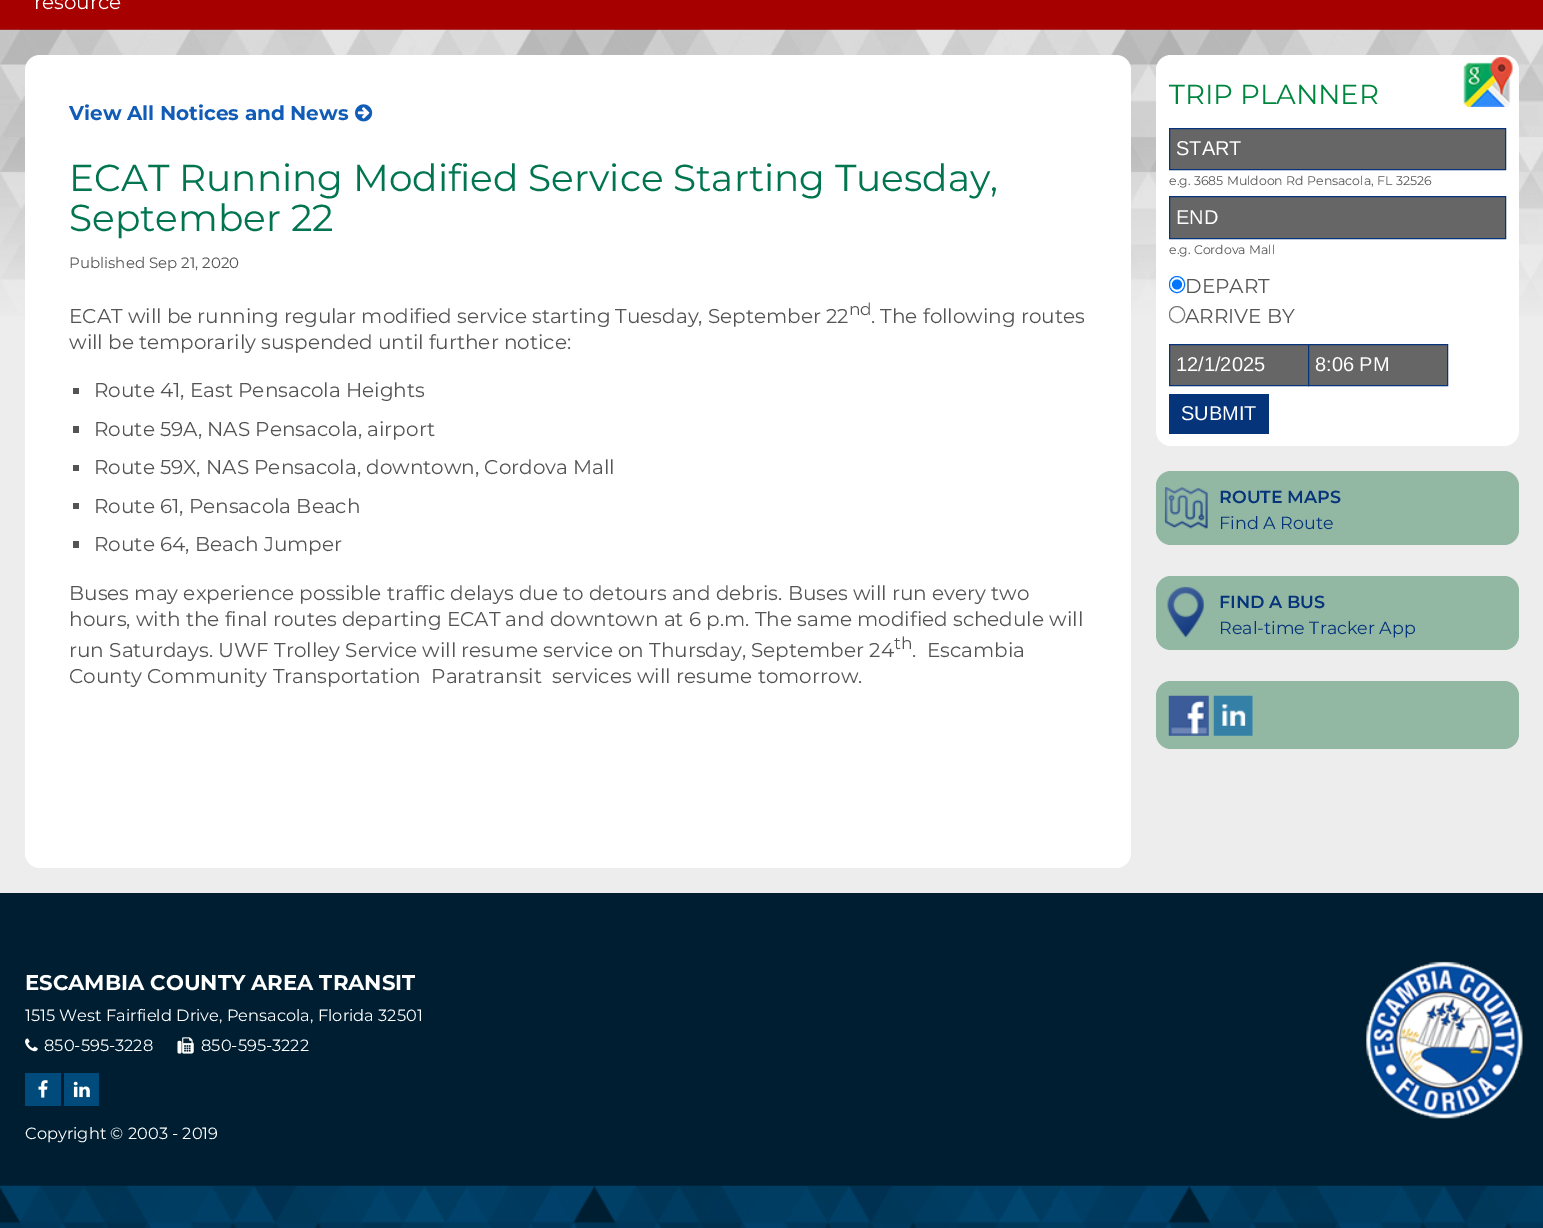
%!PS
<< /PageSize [1543 1228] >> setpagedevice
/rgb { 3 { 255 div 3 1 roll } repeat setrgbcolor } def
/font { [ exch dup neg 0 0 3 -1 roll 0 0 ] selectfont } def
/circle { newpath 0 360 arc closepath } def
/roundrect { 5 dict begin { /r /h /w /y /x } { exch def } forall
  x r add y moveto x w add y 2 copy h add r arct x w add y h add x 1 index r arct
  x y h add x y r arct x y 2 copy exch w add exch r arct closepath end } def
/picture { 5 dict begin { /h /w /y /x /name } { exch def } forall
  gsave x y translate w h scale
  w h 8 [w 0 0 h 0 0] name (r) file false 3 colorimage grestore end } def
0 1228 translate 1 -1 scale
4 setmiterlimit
237 237 237 rgb
0 0 1543 1228 rectfill
167 0 0 rgb
0 0 1543 30 rectfill
(img/1.rgb) 0 29 1543 287 picture
255 255 255 rgb
25 55 1106 813 15 roundrect fill
(img/2.rgb) 355 104 18 18 picture
[
  [73 388 6 6 84 84 84]
  [73 426 6 7 84 84 84]
  [73 465 6 6 84 84 84]
  [73 503 6 6 84 84 84]
  [73 541 6 7 84 84 84]
] { aload pop rgb rectfill } forall
255 255 255 rgb
1156 55 363 391 15 roundrect fill
(img/3.rgb) 1463 57 50 50 picture
102 102 102 rgb
1169.5 128.5 moveto 1505.5 128.5 lineto 1505.5 169.5 lineto 1169.5 169.5 lineto closepath gsave fill grestore
6 52 122 rgb
stroke
102 102 102 rgb
1169.5 196.5 moveto 1505.5 196.5 lineto 1505.5 238.5 lineto 1169.5 238.5 lineto closepath gsave fill grestore
6 52 122 rgb
stroke
0 117 255 rgb
1169.5 276.5 15 16 7.5 roundrect stroke
1177 284.5 5 circle fill
118 118 118 rgb
1169.5 306.5 15 16 7.5 roundrect stroke
102 102 102 rgb
1169.5 344.5 moveto 1308.5 344.5 lineto 1308.5 385.5 lineto 1169.5 385.5 lineto closepath gsave fill grestore
6 52 122 rgb
stroke
102 102 102 rgb
1308.5 344.5 moveto 1447.5 344.5 lineto 1447.5 385.5 lineto 1308.5 385.5 lineto closepath gsave fill grestore
6 52 122 rgb
stroke
1169 394 100 40 rectfill
146 184 164 rgb
1156 471 363 74 15 roundrect fill
(img/4.rgb) 1164 487 44 42 picture
1156 576 363 74 15 roundrect fill
(img/5.rgb) 1167 586 37 52 picture
1156 681 363 68 15 roundrect fill
(img/6.rgb) 1168 695 41 41 picture
(img/7.rgb) 1213 695 40 41 picture
0 30 49 rgb
0 893 1543 293 rectfill
(img/8.rgb) 0 1185 1543 43 picture
(img/9.rgb) 25 1038 13 14 picture
(img/10.rgb) 177 1037 17 17 picture
(img/11.rgb) 1366 961 157 158 picture
1 74 124 rgb
25 1073 36 33 rectfill
(img/12.rgb) 38 1080 10 18 picture
64 1073 35 33 rectfill
(img/13.rgb) 73 1081 17 17 picture
/Montserrat-Regular 20 font
255 255 255 rgb
34 9 moveto (resource) show
/Montserrat-Bold 20 font
16 92 182 rgb
69 120 moveto (View All Notices and News) show
/Montserrat-Regular 37.5 font
0 117 80 rgb
69 191 moveto (ECAT Running Modified Service Starting Tuesday,) show
69 231 moveto (September 22) show
/Montserrat-Regular 15 font
84 84 84 rgb
69 268 moveto (Published Sep 21, 2020) show
/Montserrat-Regular 20 font
69 323 moveto (ECAT will be running regular modified service starting Tuesday, September 22) show
/Montserrat-Regular 17 font
849 315 moveto (nd) show
/Montserrat-Regular 20 font
[
  [(. The following routes) 871 323]
  [(will be temporarily suspended until further notice:) 69 349]
  [(Route 41, East Pensacola Heights) 94 397]
  [(Route 59A, NAS Pensacola, airport) 94 436]
  [(Route 59X, NAS Pensacola, downtown, Cordova Mall) 94 474]
  [(Route 61, Pensacola Beach) 94 513]
  [(Route 64, Beach Jumper) 94 551]
  [(Buses may experience possible traffic delays due to detours and debris. Buses will run every two) 69 600]
  [(hours, with the final routes departing ECAT and downtown at 6 p.m. The same modified schedule will) 69 626]
  [(run Saturdays. UWF Trolley Service will resume service on Thursday, September 24) 69 657]
] { aload pop moveto show } forall
/Montserrat-Regular 17 font
894 649 moveto (th) show
/Montserrat-Regular 20 font
912 657 moveto (.  Escambia) show
69 683 moveto (County Community Transportation  Paratransit  services will resume tomorrow.) show
/Montserrat-Regular 27.5 font
0 133 63 rgb
1169 104 moveto (TRIP PLANNER) show
/LiberationSans-Regular 20 font
255 255 255 rgb
1176 155 moveto (START) show
/Montserrat-Regular 12.5 font
84 84 84 rgb
1169 185 moveto (e.g. 3685 Muldoon Rd Pensacola, FL 32526) show
/LiberationSans-Regular 20 font
255 255 255 rgb
1176 224 moveto (END) show
/Montserrat-Regular 12.5 font
84 84 84 rgb
1169 254 moveto (e.g. Cordova Mall) show
/Montserrat-Regular 20 font
1185 293 moveto (DEPART) show
1185 323 moveto (ARRIVE BY) show
/LiberationSans-Regular 20 font
255 255 255 rgb
[
  [(12/1/2025) 1176 371]
  [(8:06 PM) 1315 371]
  [(SUBMIT) 1181 420]
] { aload pop moveto show } forall
/Montserrat-SemiBold 17.5 font
6 52 122 rgb
1219 503 moveto (ROUTE MAPS) show
/Montserrat-Regular 17.5 font
1219 529 moveto (Find A Route) show
/Montserrat-SemiBold 17.5 font
1219 608 moveto (FIND A BUS) show
/Montserrat-Regular 17.5 font
1219 634 moveto (Real-time Tracker App) show
/Montserrat-Bold 21.25 font
255 255 255 rgb
25 990 moveto (ESCAMBIA COUNTY AREA TRANSIT) show
/Montserrat-Regular 16.25 font
[
  [(1515 West Fairfield Drive, Pensacola, Florida 32501) 25 1021]
  [(850-595-3228) 44 1051]
  [(850-595-3222) 201 1051]
  [(Copyright © 2003 - 2019) 25 1139]
] { aload pop moveto show } forall
showpage
